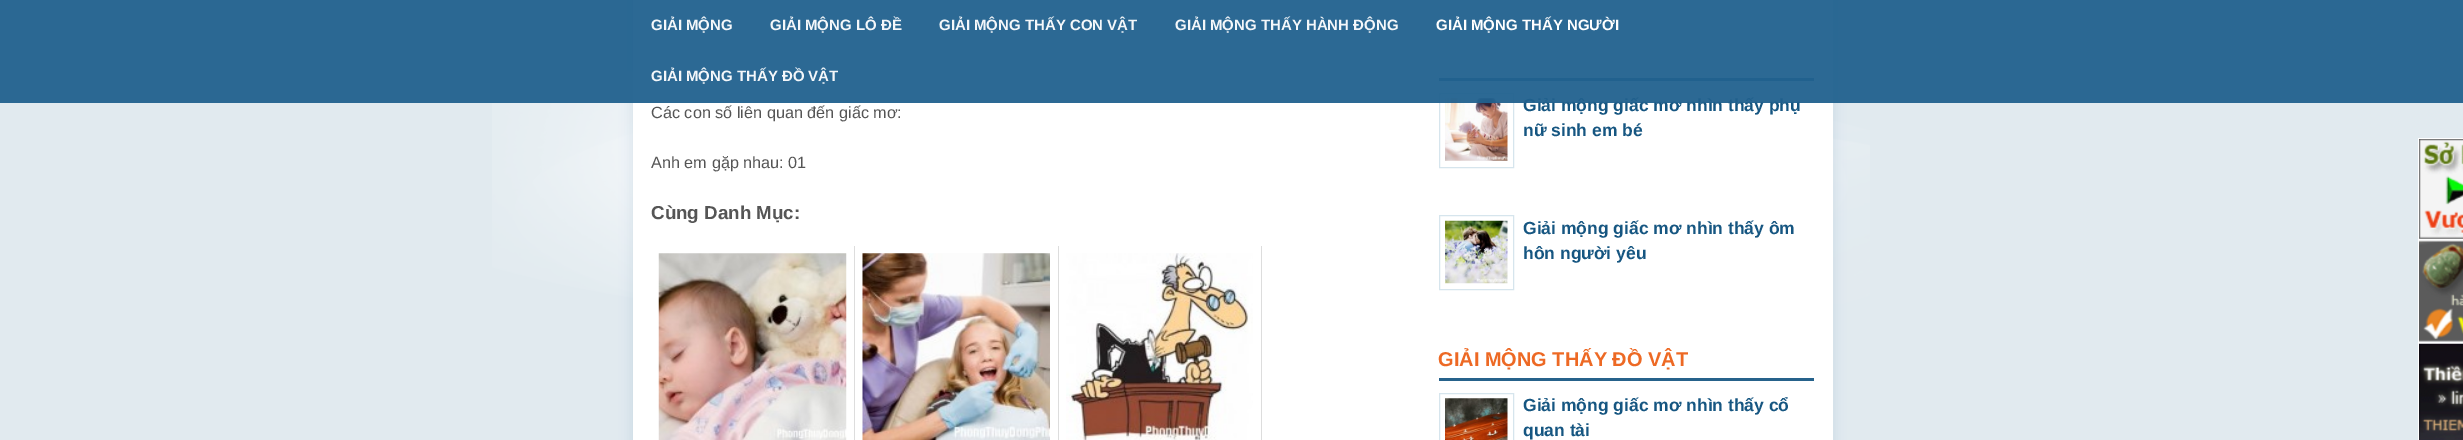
%!PS
<< /PageSize [2463 440] /PageUsesTransparency true >> setpagedevice
/rgb { 3 { 255 div 3 1 roll } repeat setrgbcolor } def
/font { [ exch dup neg 0 0 3 -1 roll 0 0 ] selectfont } def
/alpha { dup .setfillconstantalpha .setstrokeconstantalpha } def
/roundrect { 5 dict begin { /r /h /w /y /x } { exch def } forall
  x r add y moveto x w add y 2 copy h add r arct x w add y h add x 1 index r arct
  x y h add x y r arct x y 2 copy exch w add exch r arct closepath end } def
/shadow { 12 dict begin { /a /b /q /h /w /y /x } { exch def } forall gsave /was 0 def
  9 -2 -9 { dup b mul 4 div /e exch def 1 sub .425 mul 2.718 exch exp 1 add a .99 .min exch div /now exch def
    1 1 now sub 1 was sub div sub alpha /was now def
    w h .min e 2 mul add 0 gt { x e sub y e sub w e 2 mul add h e 2 mul add
      q e add b .6 mul add w h .min 2 div e add .min 0 .max roundrect fill } if } for grestore end } def
/picture { 5 dict begin { /h /w /y /x /name } { exch def } forall
  gsave x y translate w h scale
  w h 8 [w 0 0 h 0 0] name (r) file false 3 colorimage grestore end } def
0 .pushpdf14devicefilter
0 440 translate 1 -1 scale
4 setmiterlimit
225 234 239 rgb
0 0 2463 440 rectfill
(img/1.rgb) 492 70 1378 234 picture
19 82 125 rgb
631 -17 1203 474 0 5.5 0.1 shadow
255 255 255 rgb
633 0 1200 440 rectfill
221 221 221 rgb
854 246 1 194 rectfill
(img/2.rgb) 658 253 189 187 picture
1058 246 1 194 rectfill
(img/3.rgb) 862 253 188 187 picture
1261 246 1 194 rectfill
(img/4.rgb) 1066 253 187 187 picture
38 98 139 rgb
1439 78 375 3 rectfill
214 229 237 rgb
1439.5 93.5 74 74 rectstroke
(img/5.rgb) 1445 98 63 63 picture
1439.5 215.5 74 74 rectstroke
(img/6.rgb) 1445 220 63 64 picture
38 98 139 rgb
1439 378 375 3 rectfill
214 229 237 rgb
1439.5 393.5 74 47 rectstroke
(img/7.rgb) 1445 398 63 42 picture
255 255 255 rgb
2418 138 45 302 rectfill
(img/8.rgb) 2419 139 44 100 picture
(img/9.rgb) 2419 240 44 102 picture
(img/10.rgb) 2419 343 44 97 picture
/LiberationSans-Regular 16.25 font
85 85 85 rgb
651 118 moveto (Các con số liên quan đến giấc mơ:) show
651 168 moveto (Anh em gặp nhau: 01) show
/LiberationSans-Bold 18.75 font
651 219 moveto (Cùng Danh Mục:) show
/LiberationSans-Bold 17.5 font
22 86 129 rgb
1523 111 moveto (Giải mộng giấc mơ nhìn thấy phụ) show
0.95 alpha
33 97 142 rgb
0 0 2463 103 rectfill
/LiberationSans-Bold 15 font
1 alpha
244 247 250 rgb
651 81 moveto (GIẢI MỘNG THẤY ĐỒ VẬT) show
255 255 255 rgb
1436 30 moveto (GIẢI MỘNG THẤY NGƯỜI) show
244 247 250 rgb
[
  [(GIẢI MỘNG THẤY HÀNH ĐỘNG) 1175 30]
  [(GIẢI MỘNG THẤY CON VẬT) 939 30]
  [(GIẢI MỘNG LÔ ĐỀ) 770 30]
  [(GIẢI MỘNG) 651 30]
] { aload pop moveto show } forall
/LiberationSans-Bold 17.5 font
22 86 129 rgb
[
  [(nữ sinh em bé) 1523 136]
  [(Giải mộng giấc mơ nhìn thấy ôm) 1523 234]
  [(hôn người yêu) 1523 259]
] { aload pop moveto show } forall
/LiberationSans-Bold 20 font
237 105 36 rgb
1438 366 moveto (GIẢI MỘNG THẤY ĐỒ VẬT) show
/LiberationSans-Bold 17.5 font
22 86 129 rgb
1523 411 moveto (Giải mộng giấc mơ nhìn thấy cổ) show
1523 436 moveto (quan tài) show
.poppdf14devicefilter showpage
